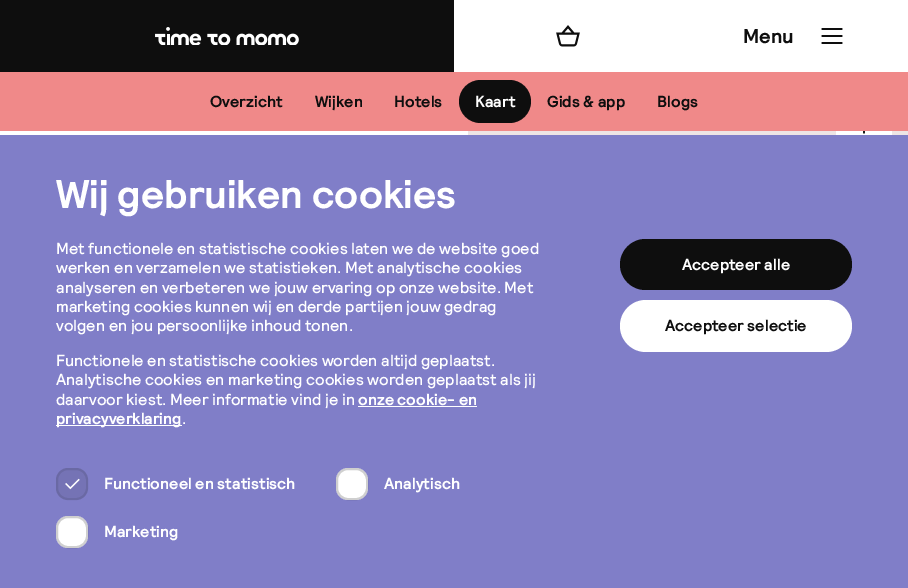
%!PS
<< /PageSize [908 588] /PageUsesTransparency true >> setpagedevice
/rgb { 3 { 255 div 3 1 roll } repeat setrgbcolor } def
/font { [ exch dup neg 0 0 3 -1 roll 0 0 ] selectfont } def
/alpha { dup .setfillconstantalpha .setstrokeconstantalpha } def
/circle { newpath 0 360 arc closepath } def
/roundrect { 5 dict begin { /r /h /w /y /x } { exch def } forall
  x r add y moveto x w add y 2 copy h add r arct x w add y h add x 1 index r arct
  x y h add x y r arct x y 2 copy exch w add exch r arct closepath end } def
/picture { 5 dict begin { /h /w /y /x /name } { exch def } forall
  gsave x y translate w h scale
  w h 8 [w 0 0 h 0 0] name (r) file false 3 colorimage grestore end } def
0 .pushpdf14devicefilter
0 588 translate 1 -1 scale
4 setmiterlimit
238 229 229 rgb
0 0 908 588 rectfill
14 14 14 rgb
0 0 454 72 rectfill
(img/1.rgb) 155 27 144 18 picture
255 255 255 rgb
454 0 454 72 rectfill
(img/2.rgb) 556 25 24 22 picture
(img/3.rgb) 821 28 22 16 picture
836 131 56 4 rectfill
864 124 28 circle fill
240 137 137 rgb
0 72 908 59 rectfill
14 14 14 rgb
459 80 72 43 21.5 roundrect fill
255 255 255 rgb
0 131 468 4 rectfill
(img/4.rgb) 863 131 2 3 picture
[
  [0 135 908 453 128 126 200]
  [358 406 119 1 255 255 255]
  [56 425 126 1 255 255 255]
] { aload pop rgb rectfill } forall
117 115 181 rgb
56 468 32 32 12 roundrect fill
0.1 alpha
14 14 14 rgb
2 setlinewidth
57 469 30 30 11 roundrect stroke
1 alpha
(img/5.rgb) 65 478 15 12 picture
255 255 255 rgb
336 468 32 32 12 roundrect fill
0.2 alpha
14 14 14 rgb
337 469 30 30 11 roundrect stroke
1 alpha
255 255 255 rgb
56 516 32 32 12 roundrect fill
0.2 alpha
14 14 14 rgb
57 517 30 30 11 roundrect stroke
1 alpha
620 239 232 51 25.5 roundrect fill
255 255 255 rgb
620 300 232 52 26 roundrect fill
/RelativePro-Bold 20 font
14 14 14 rgb
743 43 moveto (Menu) show
/RelativePro-Bold 16 font
[
  [(Overzicht) 210 107]
  [(Wijken) 315 107]
  [(Hotels) 394 107]
] { aload pop moveto show } forall
255 255 255 rgb
475 107 moveto (Kaart) show
14 14 14 rgb
547 107 moveto (Gids & app) show
657 107 moveto (Blogs) show
/RelativePro-Bold 40 font
255 255 255 rgb
56 208 moveto (Wij gebruiken cookies) show
/RelativePro-Medium 16 font
[
  [(Met functionele en statistische cookies laten we de website goed) 56 254]
  [(werken en verzamelen we statistieken. Met analytische cookies) 56 273]
  [(analyseren en verbeteren we jouw ervaring op onze website. Met) 56 293]
  [(marketing cookies kunnen wij en derde partijen jouw gedrag) 56 312]
  [(volgen en jou persoonlijke inhoud tonen.) 56 331]
  [(Functionele en statistische cookies worden altijd geplaatst.) 56 366]
  [(Analytische cookies en marketing cookies worden geplaatst als jij) 56 385]
  [(daarvoor kiest. Meer informatie vind je in) 56 405]
] { aload pop moveto show } forall
/RelativePro-Bold 16 font
358 405 moveto (onze cookie- en) show
56 424 moveto (privacyverklaring) show
/RelativePro-Medium 16 font
182 424 moveto (.) show
/RelativePro-Bold 16 font
[
  [(Functioneel en statistisch) 104 489]
  [(Analytisch) 384 489]
  [(Marketing) 104 537]
  [(Accepteer alle) 682 270]
] { aload pop moveto show } forall
14 14 14 rgb
665 331 moveto (Accepteer selectie) show
.poppdf14devicefilter showpage
